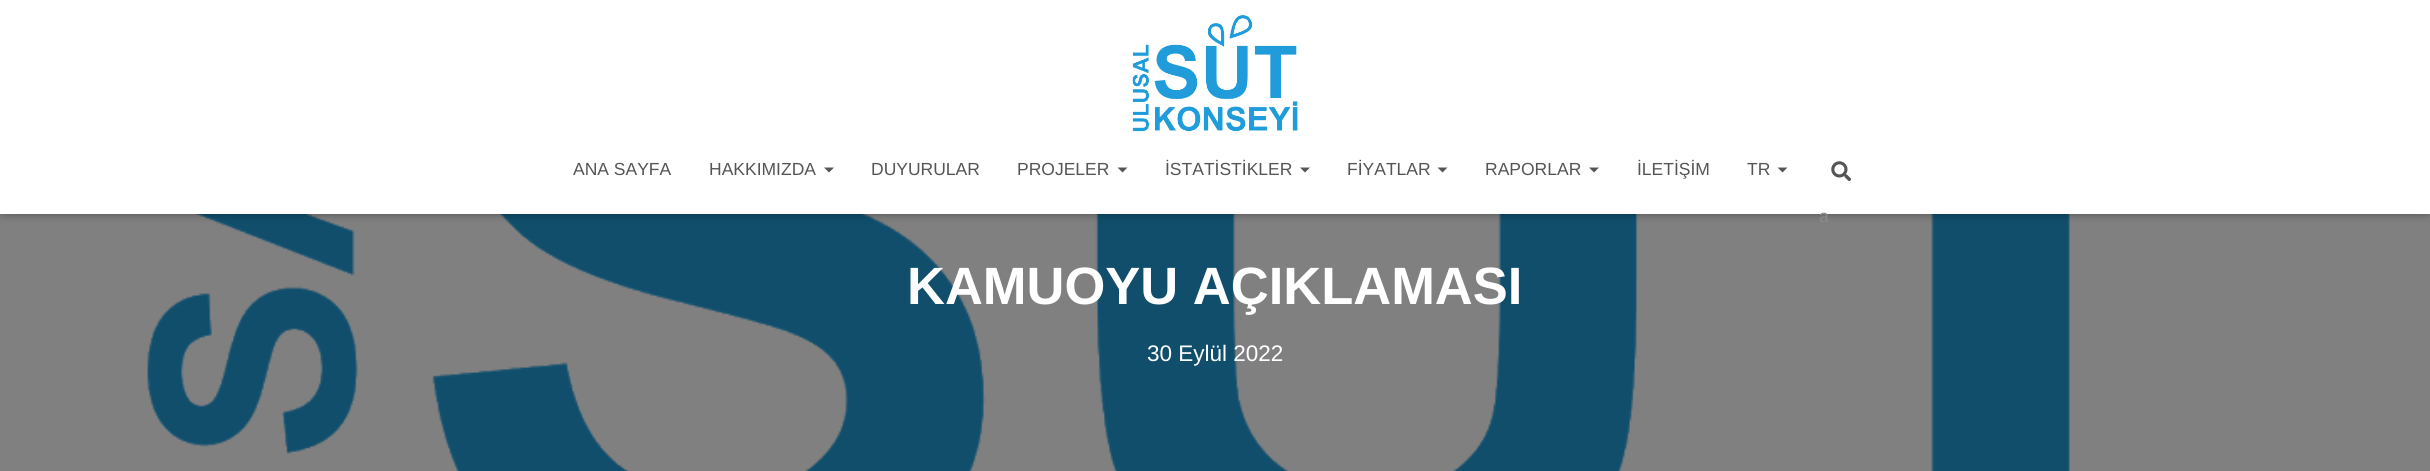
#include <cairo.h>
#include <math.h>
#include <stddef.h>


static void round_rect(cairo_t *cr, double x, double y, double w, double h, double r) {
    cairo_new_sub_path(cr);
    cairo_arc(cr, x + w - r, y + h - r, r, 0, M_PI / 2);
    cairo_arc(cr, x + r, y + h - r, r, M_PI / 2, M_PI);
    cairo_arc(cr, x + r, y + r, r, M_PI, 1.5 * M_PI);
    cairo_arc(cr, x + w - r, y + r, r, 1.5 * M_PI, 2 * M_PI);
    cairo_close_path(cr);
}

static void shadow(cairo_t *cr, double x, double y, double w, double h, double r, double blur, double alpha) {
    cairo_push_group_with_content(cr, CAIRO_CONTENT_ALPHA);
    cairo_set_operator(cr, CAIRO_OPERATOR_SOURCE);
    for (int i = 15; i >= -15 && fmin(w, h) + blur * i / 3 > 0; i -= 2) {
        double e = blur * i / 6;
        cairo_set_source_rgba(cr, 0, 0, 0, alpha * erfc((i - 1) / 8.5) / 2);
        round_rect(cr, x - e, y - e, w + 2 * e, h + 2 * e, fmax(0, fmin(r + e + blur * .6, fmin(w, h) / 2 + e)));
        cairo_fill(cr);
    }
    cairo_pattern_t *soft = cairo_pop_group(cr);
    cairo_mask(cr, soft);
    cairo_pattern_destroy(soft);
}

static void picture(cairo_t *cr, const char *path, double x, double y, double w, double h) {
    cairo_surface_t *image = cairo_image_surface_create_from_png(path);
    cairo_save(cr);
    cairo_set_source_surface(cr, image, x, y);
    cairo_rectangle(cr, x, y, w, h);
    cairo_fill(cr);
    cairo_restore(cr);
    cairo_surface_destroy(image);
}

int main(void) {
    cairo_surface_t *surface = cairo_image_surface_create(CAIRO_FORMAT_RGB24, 2430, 471);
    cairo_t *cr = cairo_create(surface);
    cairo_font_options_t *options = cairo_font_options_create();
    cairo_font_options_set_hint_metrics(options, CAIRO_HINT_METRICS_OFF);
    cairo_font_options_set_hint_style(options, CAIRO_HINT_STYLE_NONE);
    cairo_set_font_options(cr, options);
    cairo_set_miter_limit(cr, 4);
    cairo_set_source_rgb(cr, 0.502, 0.502, 0.502);
    cairo_paint(cr);
    picture(cr, "img3.png", 147, 214, 1923, 257);
    cairo_set_source_rgb(cr, 0, 0, 0);
    shadow(cr, 3, 8, 2425, 208, 0, 3, 0.1);
    shadow(cr, 0, 1, 2430, 214, 0, 6, 0.12);
    shadow(cr, 8, 9, 2415, 199, 0, 6, 0.42);
    cairo_set_source_rgb(cr, 1, 1, 1);
    cairo_rectangle(cr, 0, 0, 2430, 214);
    cairo_fill(cr);
    picture(cr, "img1.png", 1132, 15, 166, 117);
    cairo_select_font_face(cr, "Liberation Sans", CAIRO_FONT_SLANT_NORMAL, CAIRO_FONT_WEIGHT_NORMAL);
    cairo_set_font_size(cr, 17.5);
    cairo_set_source_rgb(cr, 0.333, 0.333, 0.333);
    cairo_move_to(cr, 573, 175);
    cairo_show_text(cr, "ANA SAYFA");
    cairo_move_to(cr, 709, 175);
    cairo_show_text(cr, "HAKKIMIZDA");
    cairo_new_path(cr);
    cairo_move_to(cr, 824, 167.5);
    cairo_line_to(cr, 834, 167.5);
    cairo_line_to(cr, 829, 172.5);
    cairo_close_path(cr);
    cairo_fill(cr);
    cairo_move_to(cr, 871, 175);
    cairo_show_text(cr, "DUYURULAR");
    cairo_move_to(cr, 1017, 175);
    cairo_show_text(cr, "PROJELER");
    cairo_new_path(cr);
    cairo_move_to(cr, 1117.5, 167.5);
    cairo_line_to(cr, 1127.5, 167.5);
    cairo_line_to(cr, 1122.5, 172.5);
    cairo_close_path(cr);
    cairo_fill(cr);
    cairo_move_to(cr, 1165, 175);
    cairo_show_text(cr, "İSTATİSTİKLER");
    cairo_new_path(cr);
    cairo_move_to(cr, 1300, 167.5);
    cairo_line_to(cr, 1310, 167.5);
    cairo_line_to(cr, 1305, 172.5);
    cairo_close_path(cr);
    cairo_fill(cr);
    cairo_move_to(cr, 1347, 175);
    cairo_show_text(cr, "FİYATLAR");
    cairo_new_path(cr);
    cairo_move_to(cr, 1437.5, 167.5);
    cairo_line_to(cr, 1447.5, 167.5);
    cairo_line_to(cr, 1442.5, 172.5);
    cairo_close_path(cr);
    cairo_fill(cr);
    cairo_move_to(cr, 1485, 175);
    cairo_show_text(cr, "RAPORLAR");
    cairo_new_path(cr);
    cairo_move_to(cr, 1589, 167.5);
    cairo_line_to(cr, 1599, 167.5);
    cairo_line_to(cr, 1594, 172.5);
    cairo_close_path(cr);
    cairo_fill(cr);
    cairo_move_to(cr, 1637, 175);
    cairo_show_text(cr, "İLETİŞİM");
    cairo_move_to(cr, 1747, 175);
    cairo_show_text(cr, "TR");
    cairo_new_path(cr);
    cairo_move_to(cr, 1777.5, 167.5);
    cairo_line_to(cr, 1787.5, 167.5);
    cairo_line_to(cr, 1782.5, 172.5);
    cairo_close_path(cr);
    cairo_fill(cr);
    picture(cr, "img2.png", 1831, 161, 20, 20);
    cairo_set_source_rgb(cr, 0.545, 0.545, 0.545);
    cairo_move_to(cr, 1819, 222);
    cairo_show_text(cr, "a");
    cairo_select_font_face(cr, "Liberation Sans", CAIRO_FONT_SLANT_NORMAL, CAIRO_FONT_WEIGHT_BOLD);
    cairo_set_font_size(cr, 52.5);
    cairo_set_source_rgb(cr, 1, 1, 1);
    cairo_move_to(cr, 907, 304);
    cairo_show_text(cr, "KAMUOYU AÇIKLAMASI");
    cairo_select_font_face(cr, "Liberation Sans", CAIRO_FONT_SLANT_NORMAL, CAIRO_FONT_WEIGHT_NORMAL);
    cairo_set_font_size(cr, 22.5);
    cairo_move_to(cr, 1147, 361);
    cairo_show_text(cr, "30 Eylül 2022");
    cairo_surface_write_to_png(surface, "page.png");
    cairo_font_options_destroy(options);
    cairo_destroy(cr);
    cairo_surface_destroy(surface);
    return 0;
}
